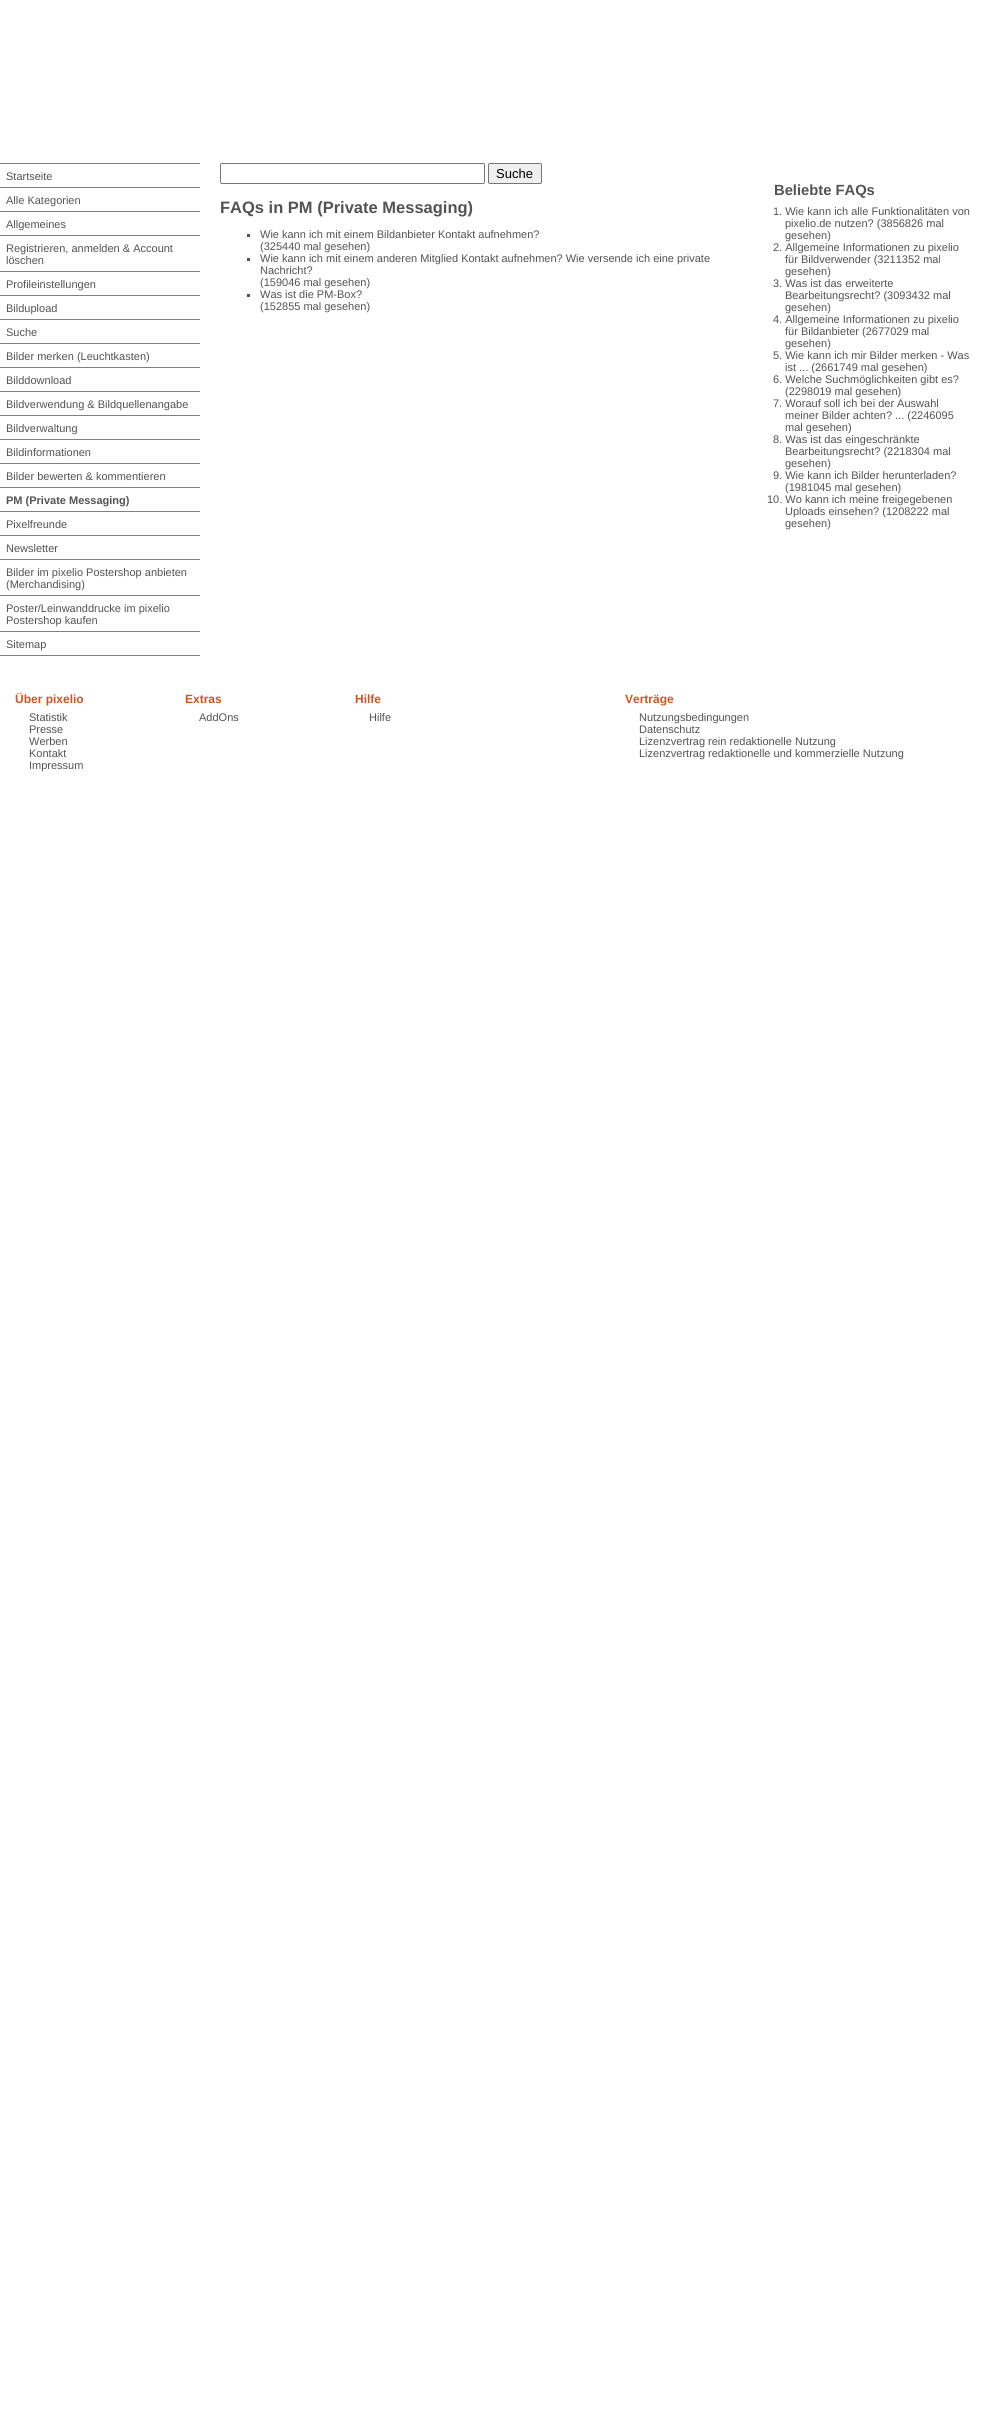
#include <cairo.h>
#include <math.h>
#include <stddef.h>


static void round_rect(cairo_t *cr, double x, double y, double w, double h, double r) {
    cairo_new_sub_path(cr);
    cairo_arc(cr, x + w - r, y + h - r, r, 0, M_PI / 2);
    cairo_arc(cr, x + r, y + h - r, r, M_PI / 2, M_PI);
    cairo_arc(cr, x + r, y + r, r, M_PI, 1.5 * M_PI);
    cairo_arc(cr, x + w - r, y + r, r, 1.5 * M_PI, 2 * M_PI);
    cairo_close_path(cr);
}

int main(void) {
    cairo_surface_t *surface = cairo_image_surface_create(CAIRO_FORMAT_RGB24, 999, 2425);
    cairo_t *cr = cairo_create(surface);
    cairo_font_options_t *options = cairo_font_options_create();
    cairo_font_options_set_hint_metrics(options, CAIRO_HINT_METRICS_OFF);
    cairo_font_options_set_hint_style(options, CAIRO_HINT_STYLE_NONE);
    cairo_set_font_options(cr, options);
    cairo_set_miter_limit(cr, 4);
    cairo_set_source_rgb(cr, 1, 1, 1);
    cairo_paint(cr);
    cairo_set_source_rgb(cr, 0.502, 0.502, 0.502);
    cairo_rectangle(cr, 0, 163, 200, 1);
    cairo_fill(cr);
    cairo_rectangle(cr, 0, 187, 200, 1);
    cairo_fill(cr);
    cairo_select_font_face(cr, "Liberation Sans", CAIRO_FONT_SLANT_NORMAL, CAIRO_FONT_WEIGHT_NORMAL);
    cairo_set_font_size(cr, 11);
    cairo_set_source_rgb(cr, 0.325, 0.325, 0.325);
    cairo_move_to(cr, 6, 180);
    cairo_show_text(cr, "Startseite");
    cairo_set_source_rgb(cr, 0.502, 0.502, 0.502);
    cairo_rectangle(cr, 0, 211, 200, 1);
    cairo_fill(cr);
    cairo_set_source_rgb(cr, 0.325, 0.325, 0.325);
    cairo_move_to(cr, 6, 204);
    cairo_show_text(cr, "Alle Kategorien");
    cairo_set_source_rgb(cr, 0.502, 0.502, 0.502);
    cairo_rectangle(cr, 0, 235, 200, 1);
    cairo_fill(cr);
    cairo_set_source_rgb(cr, 0.325, 0.325, 0.325);
    cairo_move_to(cr, 6, 228);
    cairo_show_text(cr, "Allgemeines");
    cairo_set_source_rgb(cr, 0.502, 0.502, 0.502);
    cairo_rectangle(cr, 0, 271, 200, 1);
    cairo_fill(cr);
    cairo_set_source_rgb(cr, 0.325, 0.325, 0.325);
    cairo_move_to(cr, 6, 252);
    cairo_show_text(cr, "Registrieren, anmelden & Account");
    cairo_move_to(cr, 6, 264);
    cairo_show_text(cr, "löschen");
    cairo_set_source_rgb(cr, 0.502, 0.502, 0.502);
    cairo_rectangle(cr, 0, 295, 200, 1);
    cairo_fill(cr);
    cairo_set_source_rgb(cr, 0.325, 0.325, 0.325);
    cairo_move_to(cr, 6, 288);
    cairo_show_text(cr, "Profileinstellungen");
    cairo_set_source_rgb(cr, 0.502, 0.502, 0.502);
    cairo_rectangle(cr, 0, 319, 200, 1);
    cairo_fill(cr);
    cairo_set_source_rgb(cr, 0.325, 0.325, 0.325);
    cairo_move_to(cr, 6, 312);
    cairo_show_text(cr, "Bildupload");
    cairo_set_source_rgb(cr, 0.502, 0.502, 0.502);
    cairo_rectangle(cr, 0, 343, 200, 1);
    cairo_fill(cr);
    cairo_set_source_rgb(cr, 0.325, 0.325, 0.325);
    cairo_move_to(cr, 6, 336);
    cairo_show_text(cr, "Suche");
    cairo_set_source_rgb(cr, 0.502, 0.502, 0.502);
    cairo_rectangle(cr, 0, 367, 200, 1);
    cairo_fill(cr);
    cairo_set_source_rgb(cr, 0.325, 0.325, 0.325);
    cairo_move_to(cr, 6, 360);
    cairo_show_text(cr, "Bilder merken (Leuchtkasten)");
    cairo_set_source_rgb(cr, 0.502, 0.502, 0.502);
    cairo_rectangle(cr, 0, 391, 200, 1);
    cairo_fill(cr);
    cairo_set_source_rgb(cr, 0.325, 0.325, 0.325);
    cairo_move_to(cr, 6, 384);
    cairo_show_text(cr, "Bilddownload");
    cairo_set_source_rgb(cr, 0.502, 0.502, 0.502);
    cairo_rectangle(cr, 0, 415, 200, 1);
    cairo_fill(cr);
    cairo_set_source_rgb(cr, 0.325, 0.325, 0.325);
    cairo_move_to(cr, 6, 408);
    cairo_show_text(cr, "Bildverwendung & Bildquellenangabe");
    cairo_set_source_rgb(cr, 0.502, 0.502, 0.502);
    cairo_rectangle(cr, 0, 439, 200, 1);
    cairo_fill(cr);
    cairo_set_source_rgb(cr, 0.325, 0.325, 0.325);
    cairo_move_to(cr, 6, 432);
    cairo_show_text(cr, "Bildverwaltung");
    cairo_set_source_rgb(cr, 0.502, 0.502, 0.502);
    cairo_rectangle(cr, 0, 463, 200, 1);
    cairo_fill(cr);
    cairo_set_source_rgb(cr, 0.325, 0.325, 0.325);
    cairo_move_to(cr, 6, 456);
    cairo_show_text(cr, "Bildinformationen");
    cairo_set_source_rgb(cr, 0.502, 0.502, 0.502);
    cairo_rectangle(cr, 0, 487, 200, 1);
    cairo_fill(cr);
    cairo_set_source_rgb(cr, 0.325, 0.325, 0.325);
    cairo_move_to(cr, 6, 480);
    cairo_show_text(cr, "Bilder bewerten & kommentieren");
    cairo_set_source_rgb(cr, 0.502, 0.502, 0.502);
    cairo_rectangle(cr, 0, 511, 200, 1);
    cairo_fill(cr);
    cairo_select_font_face(cr, "Liberation Sans", CAIRO_FONT_SLANT_NORMAL, CAIRO_FONT_WEIGHT_BOLD);
    cairo_set_source_rgb(cr, 0.325, 0.325, 0.325);
    cairo_move_to(cr, 6, 504);
    cairo_show_text(cr, "PM (Private Messaging)");
    cairo_set_source_rgb(cr, 0.502, 0.502, 0.502);
    cairo_rectangle(cr, 0, 535, 200, 1);
    cairo_fill(cr);
    cairo_select_font_face(cr, "Liberation Sans", CAIRO_FONT_SLANT_NORMAL, CAIRO_FONT_WEIGHT_NORMAL);
    cairo_set_source_rgb(cr, 0.325, 0.325, 0.325);
    cairo_move_to(cr, 6, 528);
    cairo_show_text(cr, "Pixelfreunde");
    cairo_set_source_rgb(cr, 0.502, 0.502, 0.502);
    cairo_rectangle(cr, 0, 559, 200, 1);
    cairo_fill(cr);
    cairo_set_source_rgb(cr, 0.325, 0.325, 0.325);
    cairo_move_to(cr, 6, 552);
    cairo_show_text(cr, "Newsletter");
    cairo_set_source_rgb(cr, 0.502, 0.502, 0.502);
    cairo_rectangle(cr, 0, 595, 200, 1);
    cairo_fill(cr);
    cairo_set_source_rgb(cr, 0.325, 0.325, 0.325);
    cairo_move_to(cr, 6, 576);
    cairo_show_text(cr, "Bilder im pixelio Postershop anbieten");
    cairo_move_to(cr, 6, 588);
    cairo_show_text(cr, "(Merchandising)");
    cairo_set_source_rgb(cr, 0.502, 0.502, 0.502);
    cairo_rectangle(cr, 0, 631, 200, 1);
    cairo_fill(cr);
    cairo_set_source_rgb(cr, 0.325, 0.325, 0.325);
    cairo_move_to(cr, 6, 612);
    cairo_show_text(cr, "Poster/Leinwanddrucke im pixelio");
    cairo_move_to(cr, 6, 624);
    cairo_show_text(cr, "Postershop kaufen");
    cairo_set_source_rgb(cr, 0.502, 0.502, 0.502);
    cairo_rectangle(cr, 0, 655, 200, 1);
    cairo_fill(cr);
    cairo_set_source_rgb(cr, 0.325, 0.325, 0.325);
    cairo_move_to(cr, 6, 648);
    cairo_show_text(cr, "Sitemap");
    round_rect(cr, 220.5, 163.5, 264, 20, 1.5);
    cairo_set_source_rgb(cr, 0.463, 0.463, 0.463);
    cairo_set_line_width(cr, 1);
    cairo_stroke(cr);
    cairo_set_source_rgb(cr, 0.937, 0.937, 0.937);
    round_rect(cr, 488.5, 163.5, 53, 20, 1.5);
    cairo_fill_preserve(cr);
    cairo_set_source_rgb(cr, 0.463, 0.463, 0.463);
    cairo_stroke(cr);
    cairo_set_font_size(cr, 13);
    cairo_set_source_rgb(cr, 0, 0, 0);
    cairo_move_to(cr, 496, 178);
    cairo_show_text(cr, "Suche");
    cairo_select_font_face(cr, "Liberation Sans", CAIRO_FONT_SLANT_NORMAL, CAIRO_FONT_WEIGHT_BOLD);
    cairo_set_font_size(cr, 16.5);
    cairo_set_source_rgb(cr, 0.325, 0.325, 0.325);
    cairo_move_to(cr, 220, 213);
    cairo_show_text(cr, "FAQs in PM (Private Messaging)");
    cairo_rectangle(cr, 247, 234, 3, 3);
    cairo_fill(cr);
    cairo_select_font_face(cr, "Liberation Sans", CAIRO_FONT_SLANT_NORMAL, CAIRO_FONT_WEIGHT_NORMAL);
    cairo_set_font_size(cr, 11);
    cairo_move_to(cr, 260, 238);
    cairo_show_text(cr, "Wie kann ich mit einem Bildanbieter Kontakt aufnehmen?");
    cairo_move_to(cr, 260, 250);
    cairo_show_text(cr, "(325440 mal gesehen)");
    cairo_rectangle(cr, 247, 258, 3, 3);
    cairo_fill(cr);
    cairo_move_to(cr, 260, 262);
    cairo_show_text(cr, "Wie kann ich mit einem anderen Mitglied Kontakt aufnehmen? Wie versende ich eine private");
    cairo_move_to(cr, 260, 274);
    cairo_show_text(cr, "Nachricht?");
    cairo_move_to(cr, 260, 286);
    cairo_show_text(cr, "(159046 mal gesehen)");
    cairo_rectangle(cr, 247, 294, 3, 3);
    cairo_fill(cr);
    cairo_move_to(cr, 260, 298);
    cairo_show_text(cr, "Was ist die PM-Box?");
    cairo_move_to(cr, 260, 310);
    cairo_show_text(cr, "(152855 mal gesehen)");
    cairo_select_font_face(cr, "Liberation Sans", CAIRO_FONT_SLANT_NORMAL, CAIRO_FONT_WEIGHT_BOLD);
    cairo_set_font_size(cr, 14.75);
    cairo_move_to(cr, 774, 195);
    cairo_show_text(cr, "Beliebte FAQs");
    cairo_select_font_face(cr, "Liberation Sans", CAIRO_FONT_SLANT_NORMAL, CAIRO_FONT_WEIGHT_NORMAL);
    cairo_set_font_size(cr, 11);
    cairo_move_to(cr, 773, 215);
    cairo_show_text(cr, "1. Wie kann ich alle Funktionalitäten von");
    cairo_move_to(cr, 785, 227);
    cairo_show_text(cr, "pixelio.de nutzen? (3856826 mal");
    cairo_move_to(cr, 785, 239);
    cairo_show_text(cr, "gesehen)");
    cairo_move_to(cr, 773, 251);
    cairo_show_text(cr, "2. Allgemeine Informationen zu pixelio");
    cairo_move_to(cr, 785, 263);
    cairo_show_text(cr, "für Bildverwender (3211352 mal");
    cairo_move_to(cr, 785, 275);
    cairo_show_text(cr, "gesehen)");
    cairo_move_to(cr, 773, 287);
    cairo_show_text(cr, "3. Was ist das erweiterte");
    cairo_move_to(cr, 785, 299);
    cairo_show_text(cr, "Bearbeitungsrecht? (3093432 mal");
    cairo_move_to(cr, 785, 311);
    cairo_show_text(cr, "gesehen)");
    cairo_move_to(cr, 773, 323);
    cairo_show_text(cr, "4. Allgemeine Informationen zu pixelio");
    cairo_move_to(cr, 785, 335);
    cairo_show_text(cr, "für Bildanbieter (2677029 mal");
    cairo_move_to(cr, 785, 347);
    cairo_show_text(cr, "gesehen)");
    cairo_move_to(cr, 773, 359);
    cairo_show_text(cr, "5. Wie kann ich mir Bilder merken - Was");
    cairo_move_to(cr, 785, 371);
    cairo_show_text(cr, "ist ... (2661749 mal gesehen)");
    cairo_move_to(cr, 773, 383);
    cairo_show_text(cr, "6. Welche Suchmöglichkeiten gibt es?");
    cairo_move_to(cr, 785, 395);
    cairo_show_text(cr, "(2298019 mal gesehen)");
    cairo_move_to(cr, 773, 407);
    cairo_show_text(cr, "7. Worauf soll ich bei der Auswahl");
    cairo_move_to(cr, 785, 419);
    cairo_show_text(cr, "meiner Bilder achten? ... (2246095");
    cairo_move_to(cr, 785, 431);
    cairo_show_text(cr, "mal gesehen)");
    cairo_move_to(cr, 773, 443);
    cairo_show_text(cr, "8. Was ist das eingeschränkte");
    cairo_move_to(cr, 785, 455);
    cairo_show_text(cr, "Bearbeitungsrecht? (2218304 mal");
    cairo_move_to(cr, 785, 467);
    cairo_show_text(cr, "gesehen)");
    cairo_move_to(cr, 773, 479);
    cairo_show_text(cr, "9. Wie kann ich Bilder herunterladen?");
    cairo_move_to(cr, 785, 491);
    cairo_show_text(cr, "(1981045 mal gesehen)");
    cairo_move_to(cr, 767, 503);
    cairo_show_text(cr, "10. Wo kann ich meine freigegebenen");
    cairo_move_to(cr, 785, 515);
    cairo_show_text(cr, "Uploads einsehen? (1208222 mal");
    cairo_move_to(cr, 785, 527);
    cairo_show_text(cr, "gesehen)");
    cairo_select_font_face(cr, "Liberation Sans", CAIRO_FONT_SLANT_NORMAL, CAIRO_FONT_WEIGHT_BOLD);
    cairo_set_font_size(cr, 12);
    cairo_set_source_rgb(cr, 0.816, 0.329, 0.137);
    cairo_move_to(cr, 15, 703);
    cairo_show_text(cr, "Über pixelio");
    cairo_select_font_face(cr, "Liberation Sans", CAIRO_FONT_SLANT_NORMAL, CAIRO_FONT_WEIGHT_NORMAL);
    cairo_set_font_size(cr, 11);
    cairo_set_source_rgb(cr, 0.325, 0.325, 0.325);
    cairo_move_to(cr, 29, 721);
    cairo_show_text(cr, "Statistik");
    cairo_move_to(cr, 29, 733);
    cairo_show_text(cr, "Presse");
    cairo_move_to(cr, 29, 745);
    cairo_show_text(cr, "Werben");
    cairo_move_to(cr, 29, 757);
    cairo_show_text(cr, "Kontakt");
    cairo_move_to(cr, 29, 769);
    cairo_show_text(cr, "Impressum");
    cairo_select_font_face(cr, "Liberation Sans", CAIRO_FONT_SLANT_NORMAL, CAIRO_FONT_WEIGHT_BOLD);
    cairo_set_font_size(cr, 12);
    cairo_set_source_rgb(cr, 0.816, 0.329, 0.137);
    cairo_move_to(cr, 185, 703);
    cairo_show_text(cr, "Extras");
    cairo_select_font_face(cr, "Liberation Sans", CAIRO_FONT_SLANT_NORMAL, CAIRO_FONT_WEIGHT_NORMAL);
    cairo_set_font_size(cr, 11);
    cairo_set_source_rgb(cr, 0.325, 0.325, 0.325);
    cairo_move_to(cr, 199, 721);
    cairo_show_text(cr, "AddOns");
    cairo_select_font_face(cr, "Liberation Sans", CAIRO_FONT_SLANT_NORMAL, CAIRO_FONT_WEIGHT_BOLD);
    cairo_set_font_size(cr, 12);
    cairo_set_source_rgb(cr, 0.816, 0.329, 0.137);
    cairo_move_to(cr, 355, 703);
    cairo_show_text(cr, "Hilfe");
    cairo_select_font_face(cr, "Liberation Sans", CAIRO_FONT_SLANT_NORMAL, CAIRO_FONT_WEIGHT_NORMAL);
    cairo_set_font_size(cr, 11);
    cairo_set_source_rgb(cr, 0.325, 0.325, 0.325);
    cairo_move_to(cr, 369, 721);
    cairo_show_text(cr, "Hilfe");
    cairo_select_font_face(cr, "Liberation Sans", CAIRO_FONT_SLANT_NORMAL, CAIRO_FONT_WEIGHT_BOLD);
    cairo_set_font_size(cr, 12);
    cairo_set_source_rgb(cr, 0.816, 0.329, 0.137);
    cairo_move_to(cr, 625, 703);
    cairo_show_text(cr, "Verträge");
    cairo_select_font_face(cr, "Liberation Sans", CAIRO_FONT_SLANT_NORMAL, CAIRO_FONT_WEIGHT_NORMAL);
    cairo_set_font_size(cr, 11);
    cairo_set_source_rgb(cr, 0.325, 0.325, 0.325);
    cairo_move_to(cr, 639, 721);
    cairo_show_text(cr, "Nutzungsbedingungen");
    cairo_move_to(cr, 639, 733);
    cairo_show_text(cr, "Datenschutz");
    cairo_move_to(cr, 639, 745);
    cairo_show_text(cr, "Lizenzvertrag rein redaktionelle Nutzung");
    cairo_move_to(cr, 639, 757);
    cairo_show_text(cr, "Lizenzvertrag redaktionelle und kommerzielle Nutzung");
    cairo_surface_write_to_png(surface, "page.png");
    cairo_font_options_destroy(options);
    cairo_destroy(cr);
    cairo_surface_destroy(surface);
    return 0;
}
